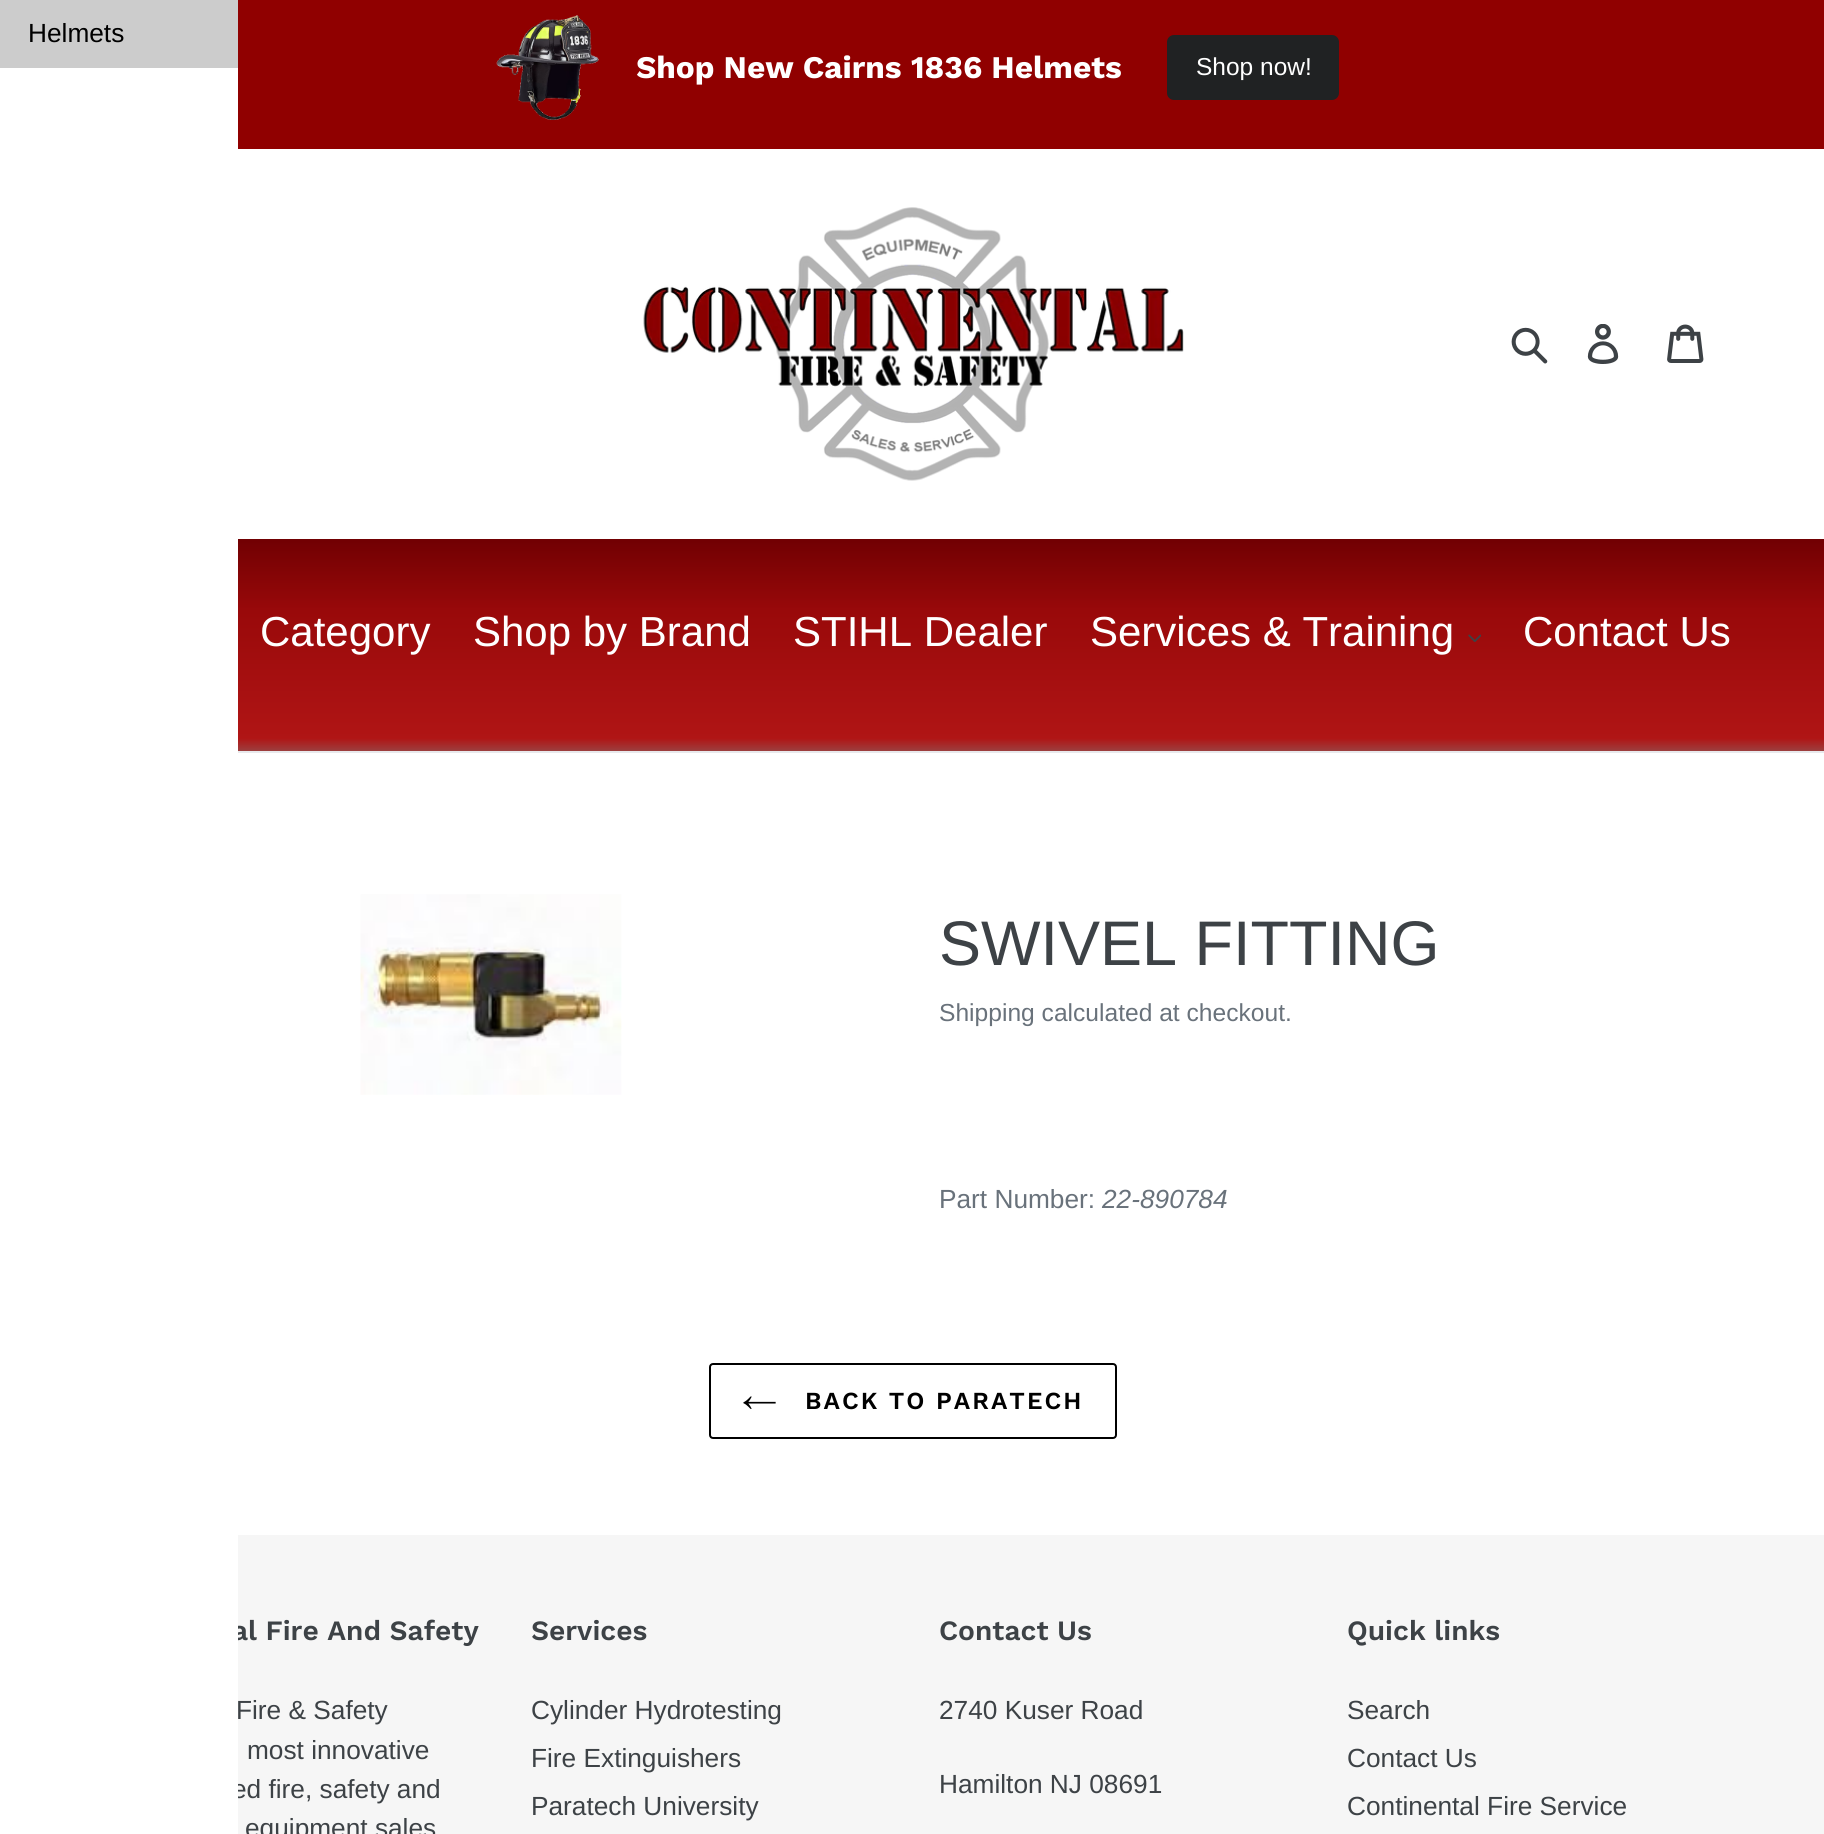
#include <cairo.h>
#include <math.h>
#include <stddef.h>


static void spaced_text(cairo_t *cr, double x, double y, const char *s, double letter, double word) {
    cairo_move_to(cr, x, y);
    while (*s) {
        char ch[5] = {0};
        int n = 0;
        do ch[n++] = *s++; while ((*s & 0xC0) == 0x80);
        cairo_show_text(cr, ch);
        cairo_rel_move_to(cr, letter + word * (*ch == ' '), 0);
    }
}

static void round_rect(cairo_t *cr, double x, double y, double w, double h, double r) {
    cairo_new_sub_path(cr);
    cairo_arc(cr, x + w - r, y + h - r, r, 0, M_PI / 2);
    cairo_arc(cr, x + r, y + h - r, r, M_PI / 2, M_PI);
    cairo_arc(cr, x + r, y + r, r, M_PI, 1.5 * M_PI);
    cairo_arc(cr, x + w - r, y + r, r, 1.5 * M_PI, 2 * M_PI);
    cairo_close_path(cr);
}

static void picture(cairo_t *cr, const char *path, double x, double y, double w, double h) {
    cairo_surface_t *image = cairo_image_surface_create_from_png(path);
    cairo_save(cr);
    cairo_set_source_surface(cr, image, x, y);
    cairo_rectangle(cr, x, y, w, h);
    cairo_fill(cr);
    cairo_restore(cr);
    cairo_surface_destroy(image);
}

int main(void) {
    cairo_surface_t *surface = cairo_image_surface_create(CAIRO_FORMAT_RGB24, 1824, 1834);
    cairo_t *cr = cairo_create(surface);
    cairo_font_options_t *options = cairo_font_options_create();
    cairo_font_options_set_hint_metrics(options, CAIRO_HINT_METRICS_OFF);
    cairo_font_options_set_hint_style(options, CAIRO_HINT_STYLE_NONE);
    cairo_set_font_options(cr, options);
    cairo_set_miter_limit(cr, 4);
    cairo_pattern_t *gradient;
    cairo_set_source_rgb(cr, 1, 1, 1);
    cairo_paint(cr);
    cairo_set_source_rgb(cr, 0.8, 0.8, 0.8);
    cairo_rectangle(cr, 0, 0, 238, 68);
    cairo_fill(cr);
    cairo_select_font_face(cr, "Liberation Sans", CAIRO_FONT_SLANT_NORMAL, CAIRO_FONT_WEIGHT_NORMAL);
    cairo_set_font_size(cr, 26.25);
    cairo_set_source_rgb(cr, 0, 0, 0);
    cairo_move_to(cr, 28, 42);
    cairo_show_text(cr, "Helmets");
    cairo_set_source_rgb(cr, 0.961, 0.961, 0.961);
    cairo_rectangle(cr, 238, 1535, 1586, 299);
    cairo_fill(cr);
    cairo_select_font_face(cr, "Work Sans SemiBold", CAIRO_FONT_SLANT_NORMAL, CAIRO_FONT_WEIGHT_NORMAL);
    cairo_set_font_size(cr, 28);
    cairo_set_source_rgb(cr, 0.239, 0.259, 0.275);
    cairo_move_to(cr, 232, 1640);
    cairo_show_text(cr, "al Fire And Safety");
    cairo_select_font_face(cr, "Liberation Sans", CAIRO_FONT_SLANT_NORMAL, CAIRO_FONT_WEIGHT_NORMAL);
    cairo_set_font_size(cr, 26.25);
    cairo_move_to(cr, 232, 1798);
    cairo_show_text(cr, "ed fire, safety and");
    cairo_set_source_rgb(cr, 1, 1, 1);
    cairo_rectangle(cr, 233, 1625, 5, 174);
    cairo_fill(cr);
    cairo_set_source_rgb(cr, 0.565, 0, 0);
    cairo_rectangle(cr, 238, 0, 1586, 149);
    cairo_fill(cr);
    picture(cr, "img1.png", 496, 15, 103, 105);
    cairo_select_font_face(cr, "Work Sans", CAIRO_FONT_SLANT_NORMAL, CAIRO_FONT_WEIGHT_BOLD);
    cairo_set_font_size(cr, 31.5);
    cairo_set_source_rgb(cr, 1, 1, 1);
    cairo_move_to(cr, 636, 78);
    cairo_show_text(cr, "Shop New Cairns 1836 Helmets");
    cairo_set_source_rgb(cr, 0.125, 0.133, 0.137);
    round_rect(cr, 1167, 35, 172, 65, 7);
    cairo_fill(cr);
    cairo_select_font_face(cr, "Liberation Sans", CAIRO_FONT_SLANT_NORMAL, CAIRO_FONT_WEIGHT_NORMAL);
    cairo_set_font_size(cr, 24.5);
    cairo_set_source_rgb(cr, 1, 1, 1);
    cairo_move_to(cr, 1196, 75);
    cairo_show_text(cr, "Shop now!");
    picture(cr, "img2.png", 643, 207, 541, 274);
    picture(cr, "img3.png", 1511, 327, 37, 37);
    picture(cr, "img4.png", 1587, 324, 32, 40);
    picture(cr, "img5.png", 1667, 324, 37, 39);
    gradient = cairo_pattern_create_linear(913, 539, 913, 751);
    cairo_pattern_add_color_stop_rgba(gradient, 0, 0.443, 0, 0.008, 1);
    cairo_pattern_add_color_stop_rgba(gradient, 0.34, 0.6, 0.035, 0.039, 1);
    cairo_pattern_add_color_stop_rgba(gradient, 0.94, 0.69, 0.082, 0.082, 1);
    cairo_pattern_add_color_stop_rgba(gradient, 1, 0.612, 0.247, 0.247, 1);
    cairo_set_source(cr, gradient);
    cairo_pattern_destroy(gradient);
    cairo_rectangle(cr, 238, 539, 1586, 212);
    cairo_fill(cr);
    cairo_set_source_rgb(cr, 0.91, 0.914, 0.922);
    cairo_rectangle(cr, 238, 751, 1586, 2);
    cairo_fill(cr);
    cairo_set_font_size(cr, 42);
    cairo_set_source_rgb(cr, 1, 1, 1);
    cairo_move_to(cr, 260, 646);
    cairo_show_text(cr, "Category");
    cairo_move_to(cr, 473, 646);
    cairo_show_text(cr, "Shop by Brand");
    cairo_move_to(cr, 793, 646);
    cairo_show_text(cr, "STIHL Dealer");
    cairo_move_to(cr, 1090, 646);
    cairo_show_text(cr, "Services & Training");
    picture(cr, "img6.png", 1468, 634, 13, 8);
    cairo_move_to(cr, 1523, 646);
    cairo_show_text(cr, "Contact Us");
    picture(cr, "img7.png", 360, 894, 262, 201);
    cairo_set_font_size(cr, 63);
    cairo_set_source_rgb(cr, 0.239, 0.259, 0.275);
    cairo_move_to(cr, 939, 965);
    cairo_show_text(cr, "SWIVEL FITTING");
    cairo_set_font_size(cr, 24.6);
    cairo_set_source_rgb(cr, 0.412, 0.447, 0.482);
    cairo_move_to(cr, 939, 1021);
    cairo_show_text(cr, "Shipping calculated at checkout.");
    cairo_set_font_size(cr, 26.25);
    cairo_move_to(cr, 939, 1208);
    cairo_show_text(cr, "Part Number:");
    cairo_select_font_face(cr, "Liberation Sans", CAIRO_FONT_SLANT_ITALIC, CAIRO_FONT_WEIGHT_NORMAL);
    cairo_move_to(cr, 1102, 1208);
    cairo_show_text(cr, "22-890784");
    round_rect(cr, 710, 1364, 406, 74, 3);
    cairo_set_source_rgb(cr, 0, 0, 0);
    cairo_stroke(cr);
    picture(cr, "img8.png", 743, 1396, 33, 13);
    cairo_select_font_face(cr, "Work Sans SemiBold", CAIRO_FONT_SLANT_NORMAL, CAIRO_FONT_WEIGHT_NORMAL);
    cairo_set_font_size(cr, 24.5);
    spaced_text(cr, 805, 1409, "BACK TO PARATECH", 2, 0);
    cairo_select_font_face(cr, "Liberation Sans", CAIRO_FONT_SLANT_NORMAL, CAIRO_FONT_WEIGHT_NORMAL);
    cairo_set_font_size(cr, 26.25);
    cairo_set_source_rgb(cr, 0.239, 0.259, 0.275);
    cairo_move_to(cr, 236, 1719);
    cairo_show_text(cr, "Fire & Safety");
    cairo_move_to(cr, 247, 1759);
    cairo_show_text(cr, "most innovative");
    cairo_move_to(cr, 245, 1837);
    cairo_show_text(cr, "equipment sales");
    cairo_select_font_face(cr, "Work Sans SemiBold", CAIRO_FONT_SLANT_NORMAL, CAIRO_FONT_WEIGHT_NORMAL);
    cairo_set_font_size(cr, 28);
    cairo_move_to(cr, 531, 1640);
    cairo_show_text(cr, "Services");
    cairo_select_font_face(cr, "Liberation Sans", CAIRO_FONT_SLANT_NORMAL, CAIRO_FONT_WEIGHT_NORMAL);
    cairo_set_font_size(cr, 26.25);
    cairo_move_to(cr, 531, 1719);
    cairo_show_text(cr, "Cylinder Hydrotesting");
    cairo_move_to(cr, 531, 1767);
    cairo_show_text(cr, "Fire Extinguishers");
    cairo_move_to(cr, 531, 1815);
    cairo_show_text(cr, "Paratech University");
    cairo_select_font_face(cr, "Work Sans SemiBold", CAIRO_FONT_SLANT_NORMAL, CAIRO_FONT_WEIGHT_NORMAL);
    cairo_set_font_size(cr, 28);
    cairo_move_to(cr, 939, 1640);
    cairo_show_text(cr, "Contact Us");
    cairo_select_font_face(cr, "Liberation Sans", CAIRO_FONT_SLANT_NORMAL, CAIRO_FONT_WEIGHT_NORMAL);
    cairo_set_font_size(cr, 26.25);
    cairo_move_to(cr, 939, 1719);
    cairo_show_text(cr, "2740 Kuser Road");
    cairo_move_to(cr, 939, 1793);
    cairo_show_text(cr, "Hamilton NJ 08691");
    cairo_select_font_face(cr, "Work Sans SemiBold", CAIRO_FONT_SLANT_NORMAL, CAIRO_FONT_WEIGHT_NORMAL);
    cairo_set_font_size(cr, 28);
    cairo_move_to(cr, 1347, 1640);
    cairo_show_text(cr, "Quick links");
    cairo_select_font_face(cr, "Liberation Sans", CAIRO_FONT_SLANT_NORMAL, CAIRO_FONT_WEIGHT_NORMAL);
    cairo_set_font_size(cr, 26.25);
    cairo_move_to(cr, 1347, 1719);
    cairo_show_text(cr, "Search");
    cairo_move_to(cr, 1347, 1767);
    cairo_show_text(cr, "Contact Us");
    cairo_move_to(cr, 1347, 1815);
    cairo_show_text(cr, "Continental Fire Service");
    cairo_surface_write_to_png(surface, "page.png");
    cairo_font_options_destroy(options);
    cairo_destroy(cr);
    cairo_surface_destroy(surface);
    return 0;
}
